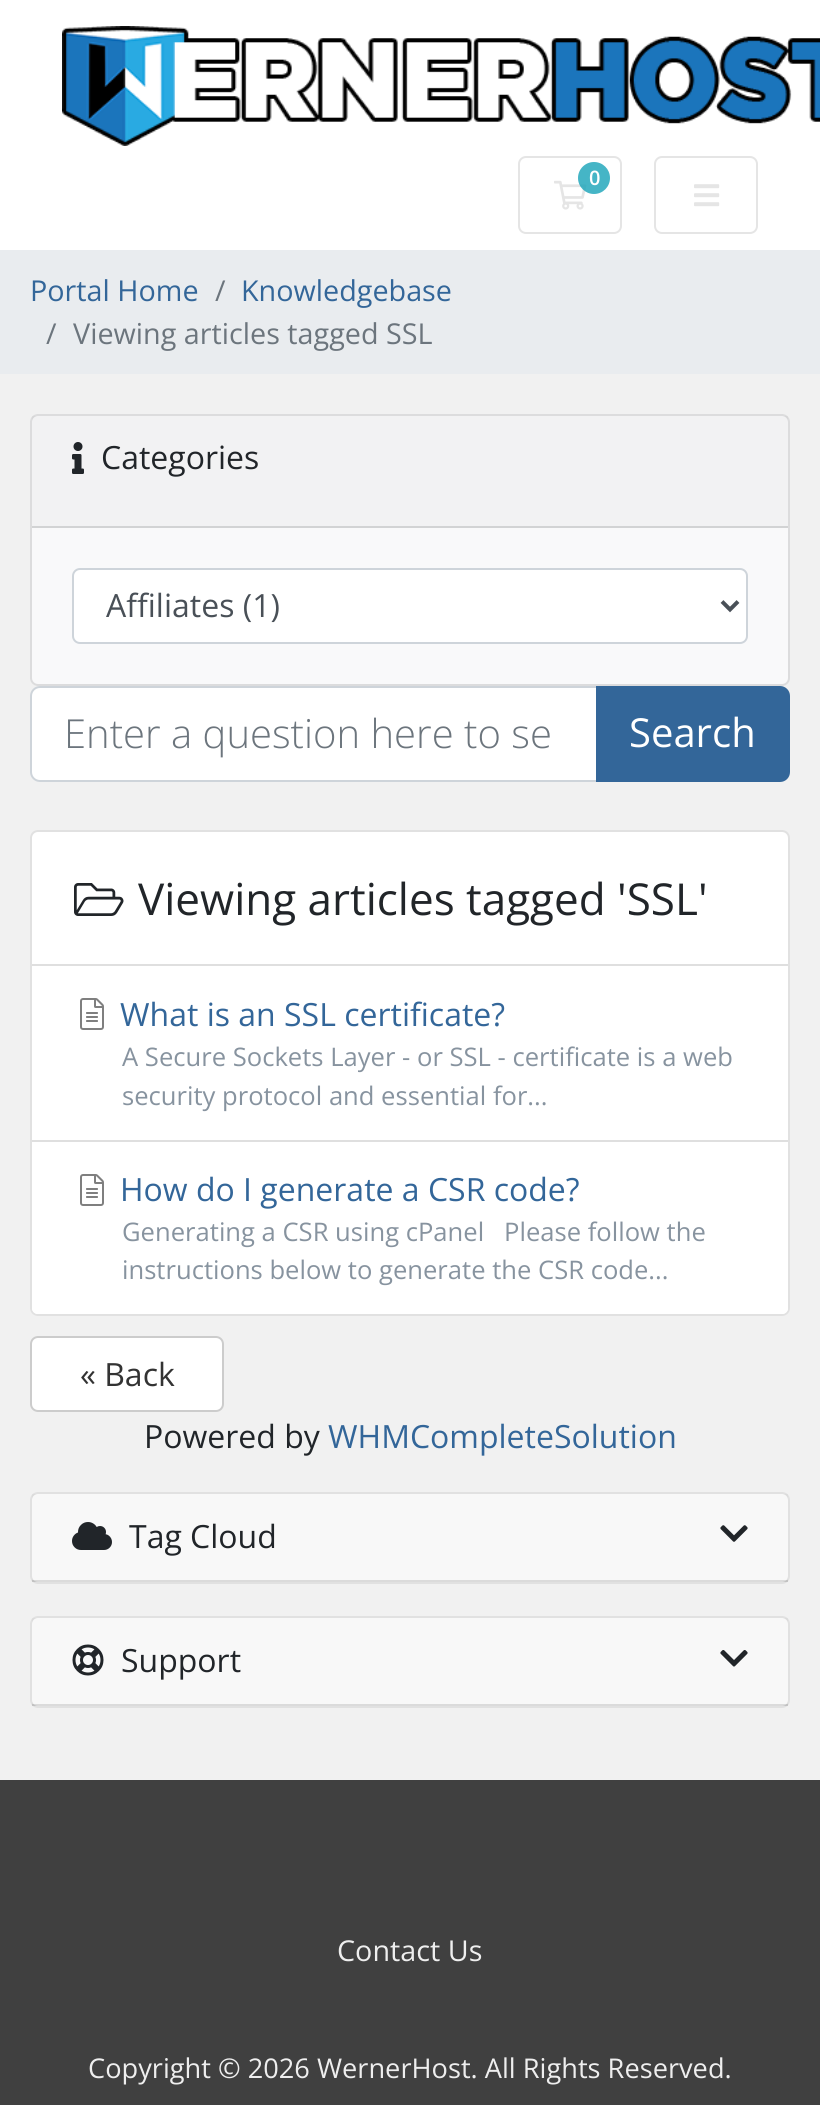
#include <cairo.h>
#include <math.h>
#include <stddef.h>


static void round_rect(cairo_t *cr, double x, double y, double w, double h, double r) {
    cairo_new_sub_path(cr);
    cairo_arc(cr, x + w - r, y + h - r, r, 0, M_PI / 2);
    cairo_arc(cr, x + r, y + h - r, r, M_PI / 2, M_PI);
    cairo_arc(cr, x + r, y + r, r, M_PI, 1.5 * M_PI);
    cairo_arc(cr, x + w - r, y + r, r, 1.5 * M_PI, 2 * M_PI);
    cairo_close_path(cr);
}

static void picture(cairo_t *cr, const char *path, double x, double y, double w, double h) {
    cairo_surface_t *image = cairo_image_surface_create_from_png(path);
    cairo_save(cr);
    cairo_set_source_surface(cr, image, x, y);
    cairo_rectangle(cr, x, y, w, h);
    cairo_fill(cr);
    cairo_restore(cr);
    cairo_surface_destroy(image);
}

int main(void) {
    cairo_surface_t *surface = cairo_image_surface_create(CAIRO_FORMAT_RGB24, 820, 2105);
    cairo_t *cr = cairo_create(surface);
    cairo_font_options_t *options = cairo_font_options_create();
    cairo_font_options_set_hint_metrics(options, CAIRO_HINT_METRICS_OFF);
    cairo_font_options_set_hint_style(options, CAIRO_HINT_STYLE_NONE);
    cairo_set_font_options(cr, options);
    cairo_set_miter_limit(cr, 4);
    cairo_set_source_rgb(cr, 0.945, 0.945, 0.945);
    cairo_paint(cr);
    cairo_set_source_rgb(cr, 1, 1, 1);
    cairo_rectangle(cr, 0, 0, 820, 250);
    cairo_fill(cr);
    picture(cr, "img1.png", 62, 26, 758, 120);
    round_rect(cr, 519, 157, 102, 76, 7);
    cairo_set_source_rgb(cr, 0.898, 0.898, 0.898);
    cairo_stroke(cr);
    picture(cr, "img2.png", 554, 180, 33, 30);
    cairo_set_source_rgba(cr, 0.09, 0.635, 0.722, 0.8);
    cairo_arc(cr, 594, 178, 16, 0, 2 * M_PI);
    cairo_fill(cr);
    cairo_select_font_face(cr, "Open Sans SemiBold", CAIRO_FONT_SLANT_NORMAL, CAIRO_FONT_WEIGHT_NORMAL);
    cairo_set_font_size(cr, 20);
    cairo_set_source_rgb(cr, 1, 1, 1);
    cairo_move_to(cr, 589, 185);
    cairo_show_text(cr, "0");
    round_rect(cr, 655, 157, 102, 76, 7);
    cairo_set_source_rgb(cr, 0.898, 0.898, 0.898);
    cairo_stroke(cr);
    picture(cr, "img3.png", 694, 184, 26, 23);
    cairo_set_source_rgb(cr, 0.914, 0.925, 0.937);
    cairo_rectangle(cr, 0, 250, 820, 124);
    cairo_fill(cr);
    cairo_select_font_face(cr, "Open Sans", CAIRO_FONT_SLANT_NORMAL, CAIRO_FONT_WEIGHT_NORMAL);
    cairo_set_font_size(cr, 28.75);
    cairo_set_source_rgb(cr, 0.2, 0.4, 0.6);
    cairo_move_to(cr, 30, 301);
    cairo_show_text(cr, "Portal Home");
    cairo_set_source_rgb(cr, 0.424, 0.459, 0.49);
    cairo_move_to(cr, 215, 301);
    cairo_show_text(cr, "/");
    cairo_set_source_rgb(cr, 0.2, 0.4, 0.6);
    cairo_move_to(cr, 241, 301);
    cairo_show_text(cr, "Knowledgebase");
    cairo_set_source_rgb(cr, 0.424, 0.459, 0.49);
    cairo_move_to(cr, 46, 344);
    cairo_show_text(cr, "/");
    cairo_move_to(cr, 73, 344);
    cairo_show_text(cr, "Viewing articles tagged SSL");
    cairo_set_source_rgb(cr, 0.973, 0.976, 0.98);
    round_rect(cr, 30, 414, 760, 272, 8);
    cairo_fill(cr);
    round_rect(cr, 31, 415, 758, 270, 7);
    cairo_set_source_rgba(cr, 0, 0, 0, 0.12);
    cairo_stroke(cr);
    cairo_set_source_rgba(cr, 0, 0, 0, 0.03);
    cairo_rectangle(cr, 32, 416, 756, 110);
    cairo_fill(cr);
    cairo_set_source_rgb(cr, 0.824, 0.827, 0.831);
    cairo_rectangle(cr, 32, 526, 756, 2);
    cairo_fill(cr);
    picture(cr, "img4.png", 72, 442, 12, 32);
    cairo_set_font_size(cr, 32);
    cairo_set_source_rgb(cr, 0.129, 0.145, 0.161);
    cairo_move_to(cr, 101, 469);
    cairo_show_text(cr, "Categories");
    cairo_set_source_rgb(cr, 1, 1, 1);
    round_rect(cr, 73, 569, 674, 74, 7);
    cairo_fill_preserve(cr);
    cairo_set_source_rgb(cr, 0.808, 0.831, 0.855);
    cairo_stroke(cr);
    cairo_new_path(cr);
    cairo_move_to(cr, 722, 601.5);
    cairo_line_to(cr, 730, 609.5);
    cairo_line_to(cr, 738, 601.5);
    cairo_set_source_rgb(cr, 0.286, 0.314, 0.341);
    cairo_set_line_width(cr, 4);
    cairo_stroke(cr);
    cairo_move_to(cr, 106, 617);
    cairo_show_text(cr, "Affiliates (1)");
    cairo_set_source_rgb(cr, 1, 1, 1);
    cairo_new_path(cr);
    cairo_move_to(cr, 40, 687);
    cairo_line_to(cr, 597, 687);
    cairo_line_to(cr, 597, 781);
    cairo_line_to(cr, 40, 781);
    cairo_curve_to(cr, 35, 781, 31, 777, 31, 772);
    cairo_line_to(cr, 31, 696);
    cairo_curve_to(cr, 31, 691, 35, 687, 40, 687);
    cairo_close_path(cr);
    cairo_fill_preserve(cr);
    cairo_set_source_rgb(cr, 0.808, 0.831, 0.855);
    cairo_set_line_width(cr, 2);
    cairo_stroke(cr);
    cairo_select_font_face(cr, "Open Sans Light", CAIRO_FONT_SLANT_NORMAL, CAIRO_FONT_WEIGHT_NORMAL);
    cairo_set_font_size(cr, 40);
    cairo_set_source_rgb(cr, 0.424, 0.459, 0.49);
    cairo_move_to(cr, 64, 748);
    cairo_show_text(cr, "Enter a question here to se");
    cairo_set_source_rgb(cr, 0.2, 0.4, 0.6);
    cairo_new_path(cr);
    cairo_move_to(cr, 597, 687);
    cairo_line_to(cr, 780, 687);
    cairo_curve_to(cr, 785, 687, 789, 691, 789, 696);
    cairo_line_to(cr, 789, 772);
    cairo_curve_to(cr, 789, 777, 785, 781, 780, 781);
    cairo_line_to(cr, 597, 781);
    cairo_close_path(cr);
    cairo_fill_preserve(cr);
    cairo_stroke(cr);
    cairo_select_font_face(cr, "Open Sans", CAIRO_FONT_SLANT_NORMAL, CAIRO_FONT_WEIGHT_NORMAL);
    cairo_set_source_rgb(cr, 1, 1, 1);
    cairo_move_to(cr, 629, 747);
    cairo_show_text(cr, "Search");
    round_rect(cr, 30, 830, 760, 486, 8);
    cairo_fill(cr);
    round_rect(cr, 31, 831, 758, 484, 7);
    cairo_set_source_rgba(cr, 0, 0, 0, 0.12);
    cairo_stroke(cr);
    picture(cr, "img5.png", 74, 883, 50, 33);
    cairo_set_font_size(cr, 44);
    cairo_set_source_rgb(cr, 0.129, 0.145, 0.161);
    cairo_move_to(cr, 138, 915);
    cairo_show_text(cr, "Viewing articles tagged 'SSL'");
    cairo_set_source_rgb(cr, 0.875, 0.875, 0.875);
    cairo_rectangle(cr, 32, 964, 756, 2);
    cairo_fill(cr);
    cairo_rectangle(cr, 32, 1140, 756, 2);
    cairo_fill(cr);
    picture(cr, "img6.png", 80, 998, 24, 32);
    cairo_set_font_size(cr, 32);
    cairo_set_source_rgb(cr, 0.2, 0.4, 0.6);
    cairo_move_to(cr, 120, 1026);
    cairo_show_text(cr, "What is an SSL certificate?");
    cairo_set_font_size(cr, 25.6);
    cairo_set_source_rgb(cr, 0.529, 0.576, 0.624);
    cairo_move_to(cr, 122, 1066);
    cairo_show_text(cr, "A Secure Sockets Layer - or SSL - certificate is a web");
    cairo_move_to(cr, 122, 1105);
    cairo_show_text(cr, "security protocol and essential for...");
    cairo_set_source_rgb(cr, 1, 1, 1);
    cairo_new_path(cr);
    cairo_move_to(cr, 32, 1142);
    cairo_line_to(cr, 788, 1142);
    cairo_line_to(cr, 788, 1308);
    cairo_curve_to(cr, 788, 1311.5, 785.5, 1314, 782, 1314);
    cairo_line_to(cr, 38, 1314);
    cairo_curve_to(cr, 34.5, 1314, 32, 1311.5, 32, 1308);
    cairo_close_path(cr);
    cairo_fill(cr);
    picture(cr, "img6.png", 80, 1174, 24, 32);
    cairo_set_font_size(cr, 32);
    cairo_set_source_rgb(cr, 0.2, 0.4, 0.6);
    cairo_move_to(cr, 120, 1201);
    cairo_show_text(cr, "How do I generate a CSR code?");
    cairo_set_font_size(cr, 25.6);
    cairo_set_source_rgb(cr, 0.529, 0.576, 0.624);
    cairo_move_to(cr, 122, 1241);
    cairo_show_text(cr, "Generating a CSR using cPanel   Please follow the");
    cairo_move_to(cr, 122, 1279);
    cairo_show_text(cr, "instructions below to generate the CSR code...");
    cairo_set_source_rgb(cr, 1, 1, 1);
    round_rect(cr, 31, 1337, 192, 74, 7);
    cairo_fill_preserve(cr);
    cairo_set_source_rgb(cr, 0.8, 0.8, 0.8);
    cairo_stroke(cr);
    cairo_set_font_size(cr, 32);
    cairo_set_source_rgb(cr, 0.2, 0.2, 0.2);
    cairo_move_to(cr, 80, 1386);
    cairo_show_text(cr, "« Back");
    cairo_set_source_rgb(cr, 0.129, 0.145, 0.161);
    cairo_move_to(cr, 144, 1448);
    cairo_show_text(cr, "Powered by");
    cairo_set_source_rgb(cr, 0.2, 0.4, 0.6);
    cairo_move_to(cr, 328, 1448);
    cairo_show_text(cr, "WHMCompleteSolution");
    cairo_set_source_rgb(cr, 1, 1, 1);
    round_rect(cr, 30, 1492, 760, 92, 8);
    cairo_fill(cr);
    round_rect(cr, 31, 1493, 758, 90, 7);
    cairo_set_source_rgba(cr, 0, 0, 0, 0.12);
    cairo_stroke(cr);
    cairo_set_source_rgba(cr, 0, 0, 0, 0.03);
    cairo_rectangle(cr, 32, 1494, 756, 88);
    cairo_fill(cr);
    cairo_set_source_rgba(cr, 0, 0, 0, 0.12);
    cairo_rectangle(cr, 32, 1580, 756, 2);
    cairo_fill(cr);
    picture(cr, "img7.png", 72, 1522, 40, 28);
    cairo_set_source_rgb(cr, 0.129, 0.145, 0.161);
    cairo_move_to(cr, 129, 1548);
    cairo_show_text(cr, "Tag Cloud");
    picture(cr, "img8.png", 720, 1525, 28, 17);
    cairo_set_source_rgb(cr, 1, 1, 1);
    round_rect(cr, 30, 1616, 760, 92, 8);
    cairo_fill(cr);
    round_rect(cr, 31, 1617, 758, 90, 7);
    cairo_set_source_rgba(cr, 0, 0, 0, 0.12);
    cairo_stroke(cr);
    cairo_set_source_rgba(cr, 0, 0, 0, 0.03);
    cairo_rectangle(cr, 32, 1618, 756, 88);
    cairo_fill(cr);
    cairo_set_source_rgba(cr, 0, 0, 0, 0.12);
    cairo_rectangle(cr, 32, 1704, 756, 2);
    cairo_fill(cr);
    picture(cr, "img9.png", 72, 1644, 32, 32);
    cairo_set_source_rgb(cr, 0.129, 0.145, 0.161);
    cairo_move_to(cr, 121, 1672);
    cairo_show_text(cr, "Support");
    picture(cr, "img10.png", 720, 1650, 28, 17);
    cairo_set_source_rgb(cr, 0.251, 0.251, 0.251);
    cairo_rectangle(cr, 0, 1780, 820, 325);
    cairo_fill(cr);
    cairo_set_font_size(cr, 28.75);
    cairo_set_source_rgb(cr, 0.933, 0.933, 0.933);
    cairo_move_to(cr, 337, 1961);
    cairo_show_text(cr, "Contact Us");
    cairo_set_font_size(cr, 27.2);
    cairo_move_to(cr, 88, 2078);
    cairo_show_text(cr, "Copyright © 2026 WernerHost. All Rights Reserved.");
    cairo_surface_write_to_png(surface, "page.png");
    cairo_font_options_destroy(options);
    cairo_destroy(cr);
    cairo_surface_destroy(surface);
    return 0;
}
